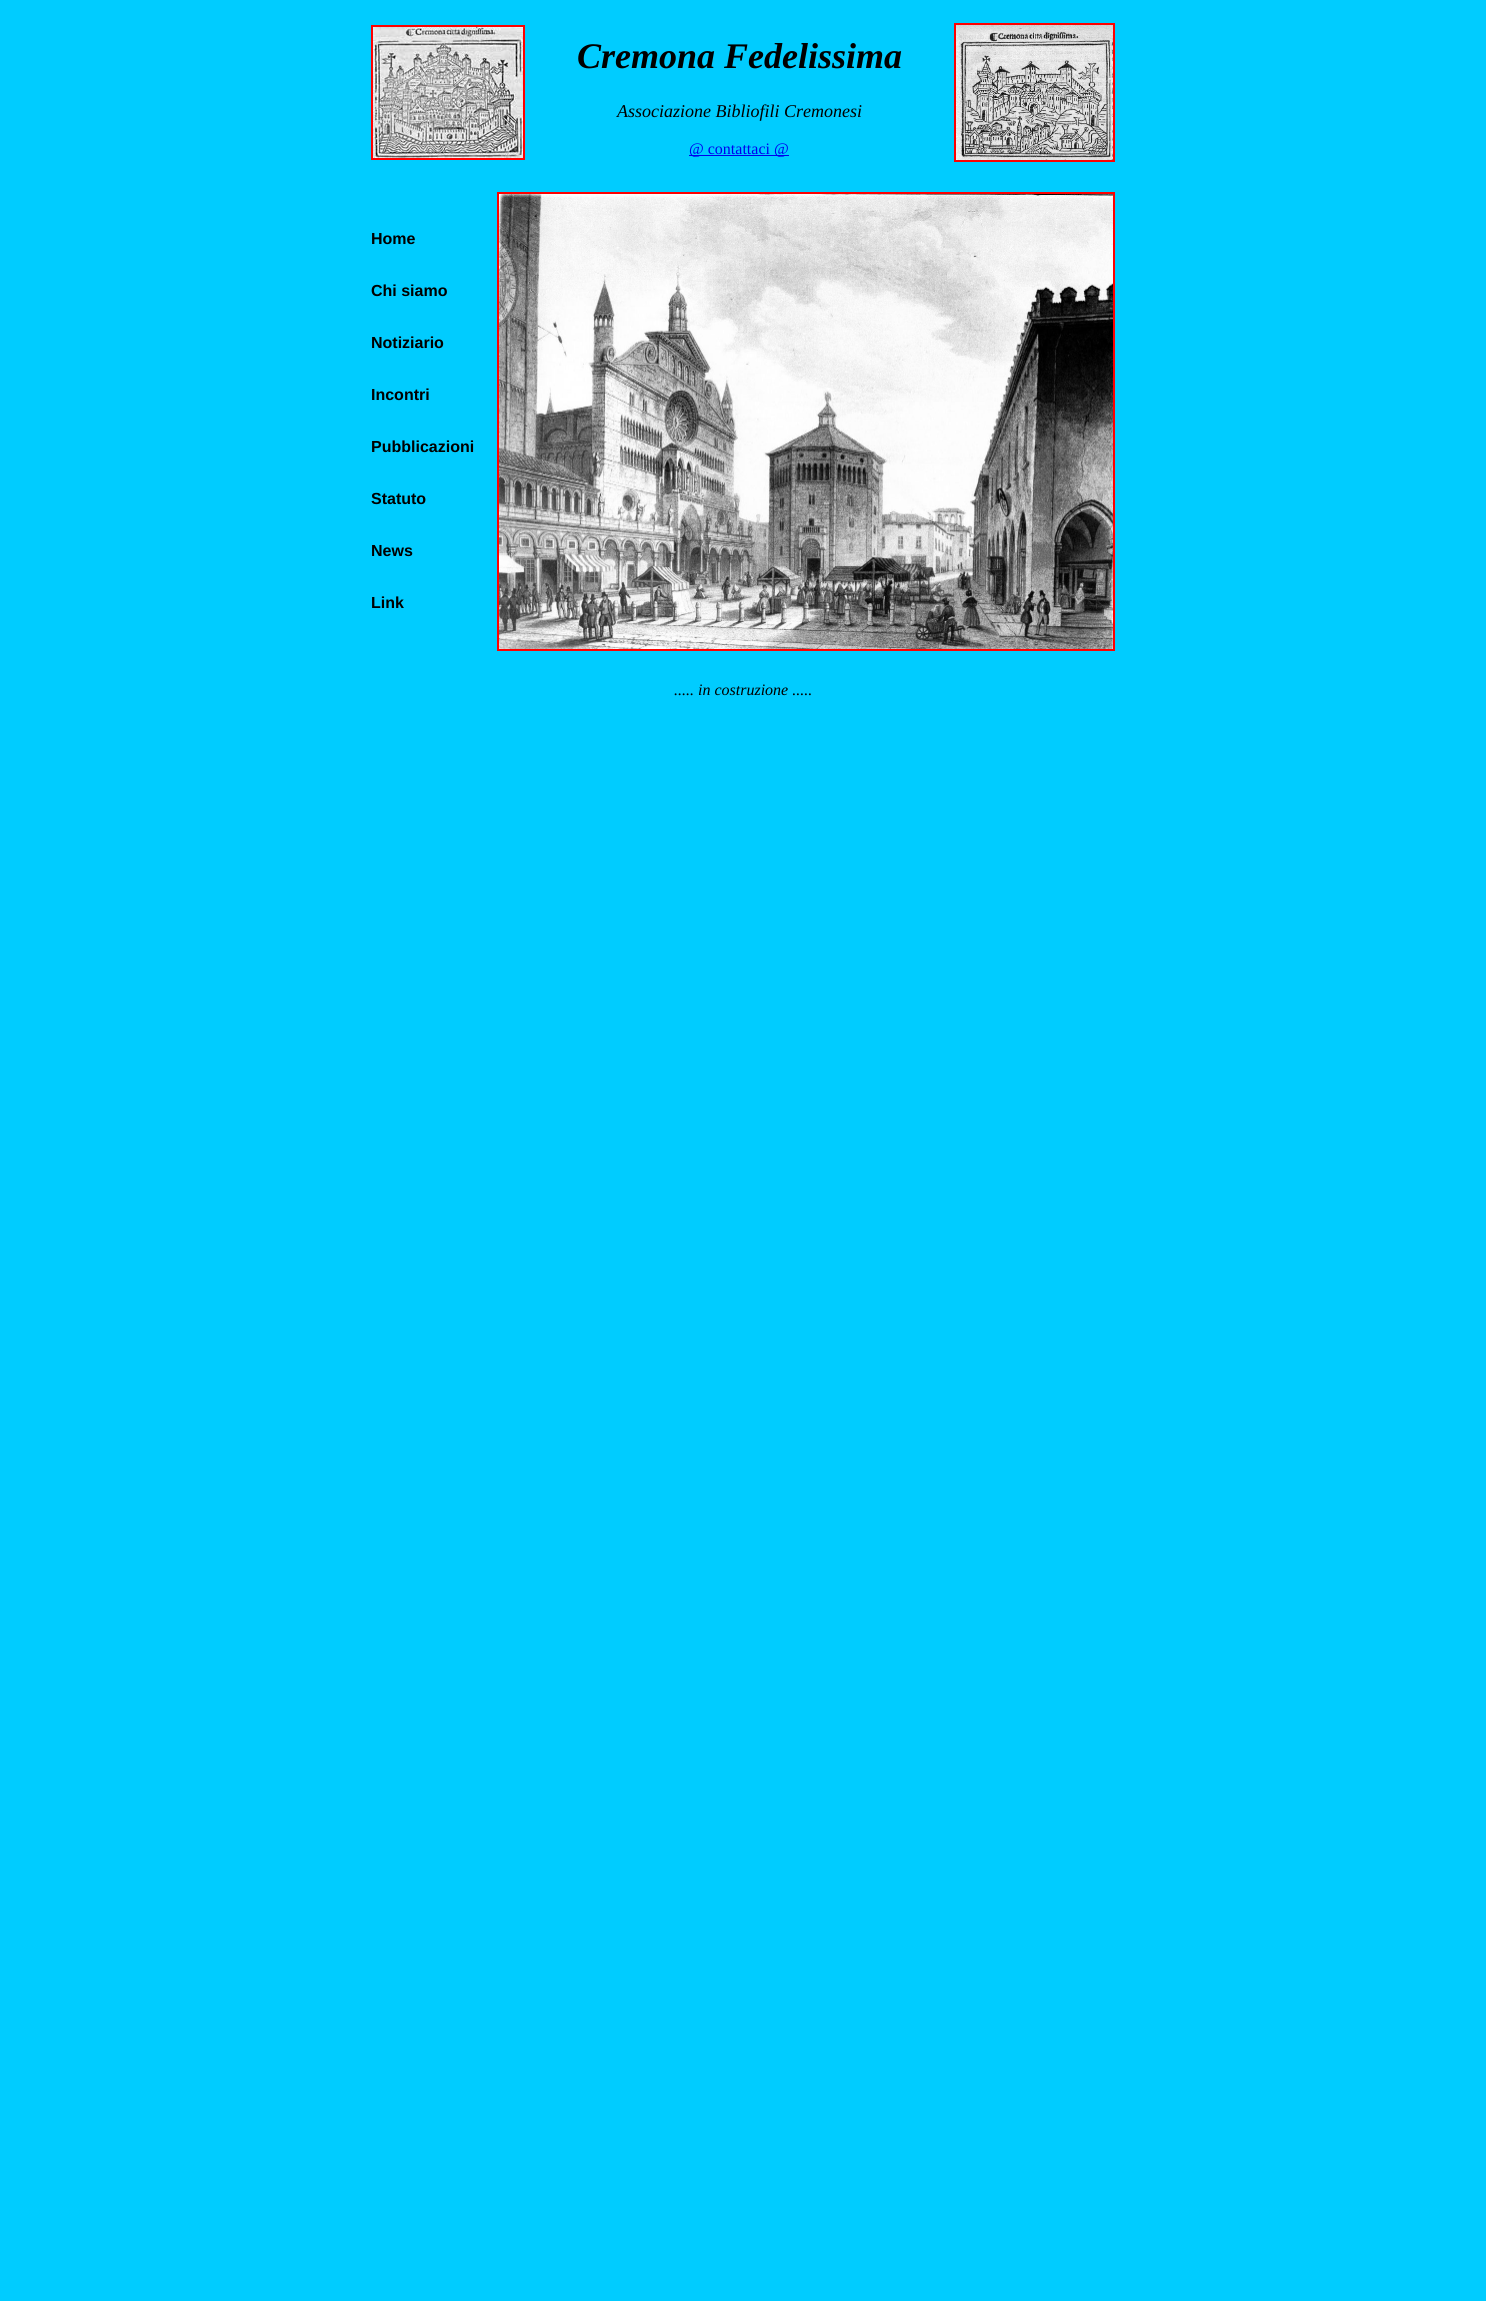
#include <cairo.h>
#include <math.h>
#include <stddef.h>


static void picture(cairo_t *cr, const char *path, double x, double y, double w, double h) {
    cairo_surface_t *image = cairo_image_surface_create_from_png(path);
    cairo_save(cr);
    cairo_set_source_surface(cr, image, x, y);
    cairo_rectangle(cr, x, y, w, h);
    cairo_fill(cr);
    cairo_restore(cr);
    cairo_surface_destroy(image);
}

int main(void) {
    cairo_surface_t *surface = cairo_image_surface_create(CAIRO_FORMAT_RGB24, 1486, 2301);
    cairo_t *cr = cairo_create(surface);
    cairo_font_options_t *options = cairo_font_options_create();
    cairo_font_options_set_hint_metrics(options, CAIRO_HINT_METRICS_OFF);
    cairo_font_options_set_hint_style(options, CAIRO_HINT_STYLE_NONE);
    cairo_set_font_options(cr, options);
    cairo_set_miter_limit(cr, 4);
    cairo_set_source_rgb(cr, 0, 0.8, 1);
    cairo_paint(cr);
    cairo_rectangle(cr, 372, 26, 152, 133);
    cairo_set_source_rgb(cr, 1, 0, 0);
    cairo_stroke(cr);
    picture(cr, "img1.png", 373, 27, 150, 131);
    cairo_select_font_face(cr, "Liberation Serif", CAIRO_FONT_SLANT_ITALIC, CAIRO_FONT_WEIGHT_BOLD);
    cairo_set_font_size(cr, 36);
    cairo_set_source_rgb(cr, 0, 0, 0);
    cairo_move_to(cr, 577, 68);
    cairo_show_text(cr, "Cremona Fedelissima");
    cairo_select_font_face(cr, "Liberation Serif", CAIRO_FONT_SLANT_ITALIC, CAIRO_FONT_WEIGHT_NORMAL);
    cairo_set_font_size(cr, 18);
    cairo_move_to(cr, 617, 117);
    cairo_show_text(cr, "Associazione Bibliofili Cremonesi");
    cairo_set_source_rgb(cr, 0, 0, 0.933);
    cairo_rectangle(cr, 689, 155, 100, 1);
    cairo_fill(cr);
    cairo_select_font_face(cr, "Liberation Serif", CAIRO_FONT_SLANT_NORMAL, CAIRO_FONT_WEIGHT_NORMAL);
    cairo_set_font_size(cr, 16);
    cairo_move_to(cr, 689, 154);
    cairo_show_text(cr, "@ contattaci @");
    cairo_rectangle(cr, 955, 24, 159, 137);
    cairo_set_source_rgb(cr, 1, 0, 0);
    cairo_stroke(cr);
    picture(cr, "img2.png", 956, 25, 157, 135);
    cairo_select_font_face(cr, "Liberation Sans", CAIRO_FONT_SLANT_NORMAL, CAIRO_FONT_WEIGHT_BOLD);
    cairo_set_source_rgb(cr, 0, 0, 0);
    cairo_move_to(cr, 371, 244);
    cairo_show_text(cr, "Home");
    cairo_move_to(cr, 371, 296);
    cairo_show_text(cr, "Chi siamo");
    cairo_move_to(cr, 371, 348);
    cairo_show_text(cr, "Notiziario");
    cairo_move_to(cr, 371, 400);
    cairo_show_text(cr, "Incontri");
    cairo_move_to(cr, 371, 452);
    cairo_show_text(cr, "Pubblicazioni");
    cairo_move_to(cr, 371, 504);
    cairo_show_text(cr, "Statuto");
    cairo_move_to(cr, 371, 556);
    cairo_show_text(cr, "News");
    cairo_move_to(cr, 371, 608);
    cairo_show_text(cr, "Link");
    cairo_rectangle(cr, 498, 193, 616, 457);
    cairo_set_source_rgb(cr, 1, 0, 0);
    cairo_stroke(cr);
    picture(cr, "img3.png", 499, 194, 614, 455);
    cairo_select_font_face(cr, "Liberation Serif", CAIRO_FONT_SLANT_ITALIC, CAIRO_FONT_WEIGHT_NORMAL);
    cairo_set_source_rgb(cr, 0, 0, 0);
    cairo_move_to(cr, 674, 695);
    cairo_show_text(cr, "..... in costruzione .....");
    cairo_surface_write_to_png(surface, "page.png");
    cairo_font_options_destroy(options);
    cairo_destroy(cr);
    cairo_surface_destroy(surface);
    return 0;
}
